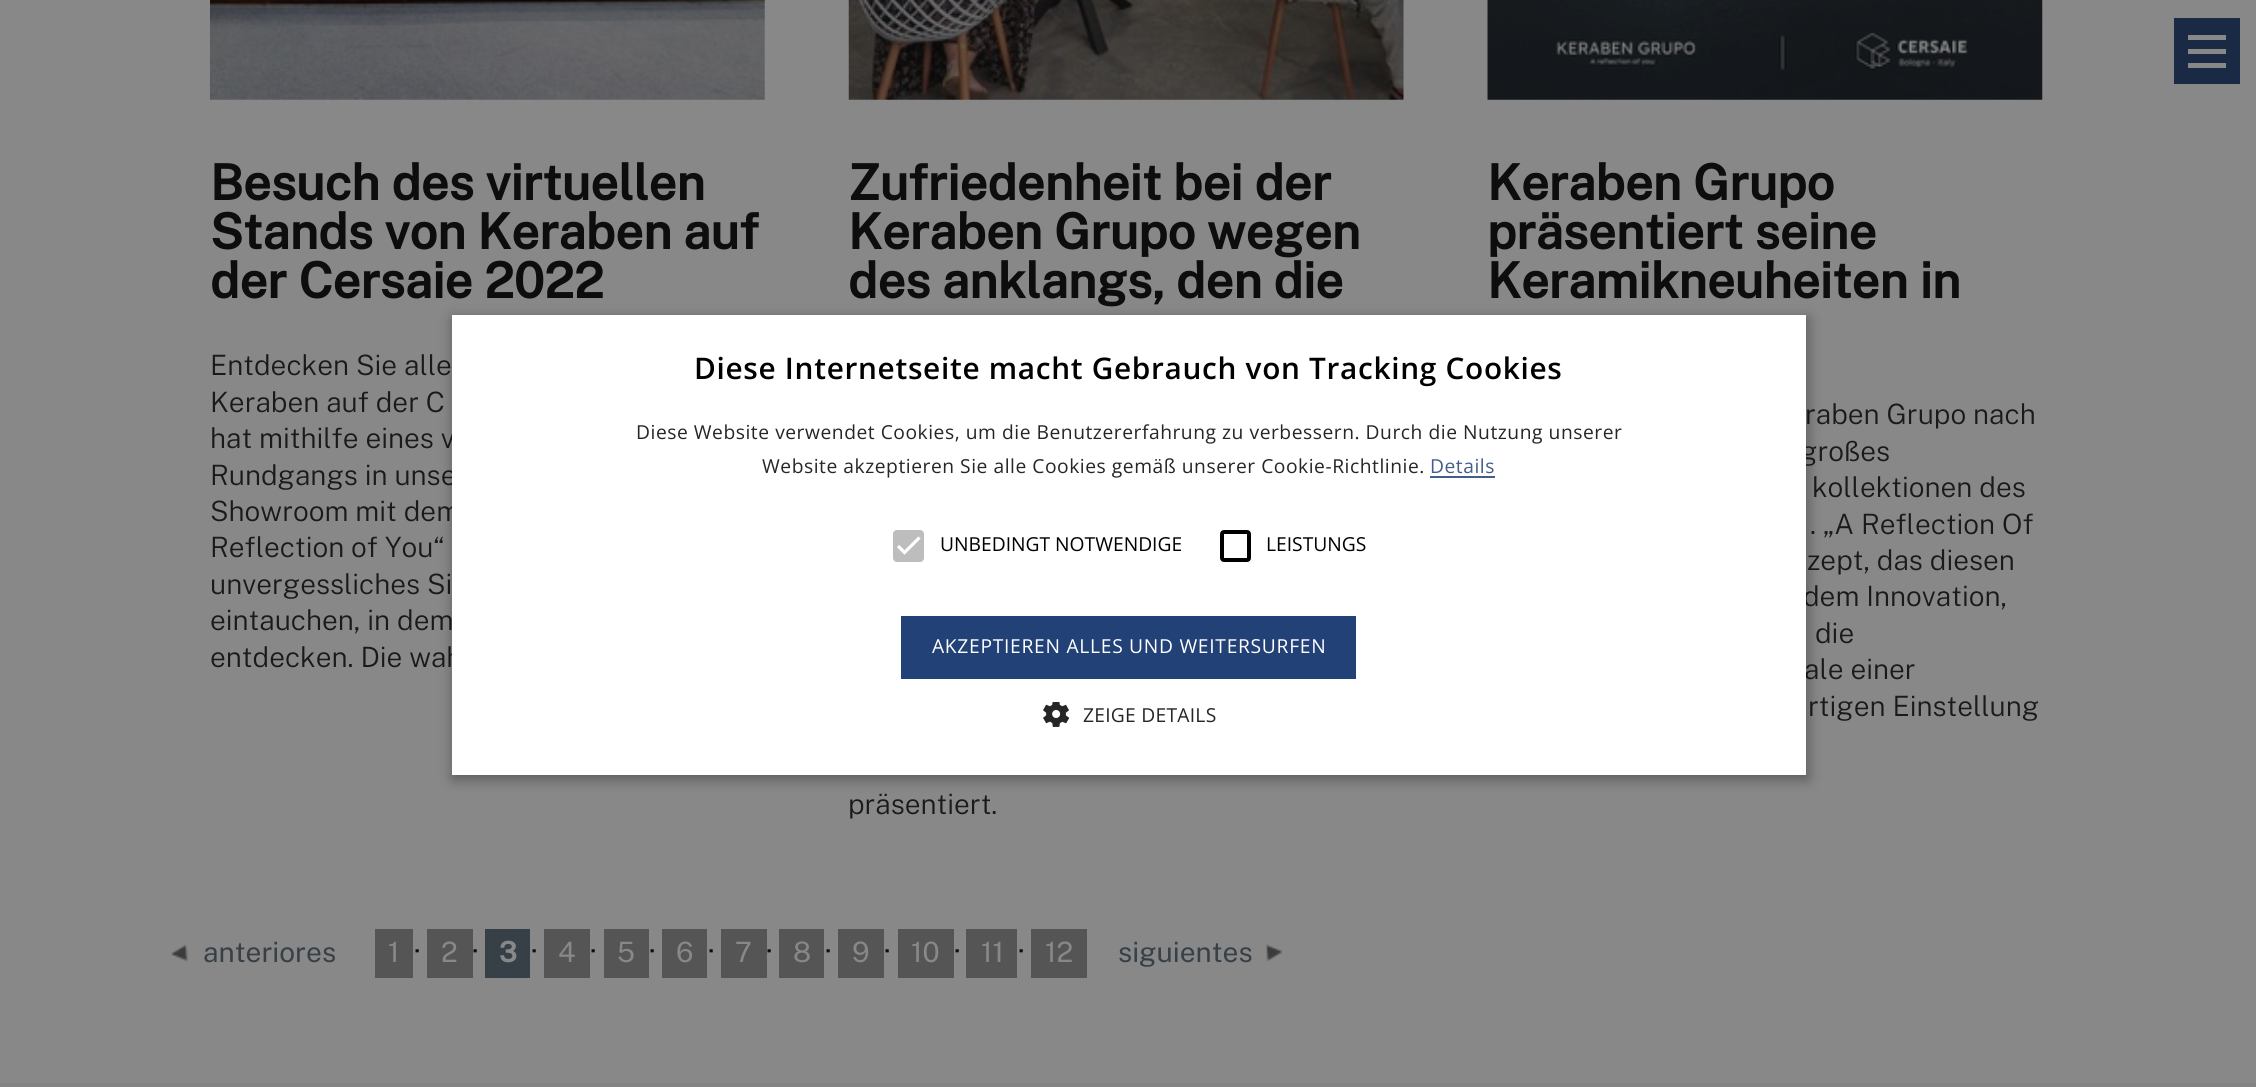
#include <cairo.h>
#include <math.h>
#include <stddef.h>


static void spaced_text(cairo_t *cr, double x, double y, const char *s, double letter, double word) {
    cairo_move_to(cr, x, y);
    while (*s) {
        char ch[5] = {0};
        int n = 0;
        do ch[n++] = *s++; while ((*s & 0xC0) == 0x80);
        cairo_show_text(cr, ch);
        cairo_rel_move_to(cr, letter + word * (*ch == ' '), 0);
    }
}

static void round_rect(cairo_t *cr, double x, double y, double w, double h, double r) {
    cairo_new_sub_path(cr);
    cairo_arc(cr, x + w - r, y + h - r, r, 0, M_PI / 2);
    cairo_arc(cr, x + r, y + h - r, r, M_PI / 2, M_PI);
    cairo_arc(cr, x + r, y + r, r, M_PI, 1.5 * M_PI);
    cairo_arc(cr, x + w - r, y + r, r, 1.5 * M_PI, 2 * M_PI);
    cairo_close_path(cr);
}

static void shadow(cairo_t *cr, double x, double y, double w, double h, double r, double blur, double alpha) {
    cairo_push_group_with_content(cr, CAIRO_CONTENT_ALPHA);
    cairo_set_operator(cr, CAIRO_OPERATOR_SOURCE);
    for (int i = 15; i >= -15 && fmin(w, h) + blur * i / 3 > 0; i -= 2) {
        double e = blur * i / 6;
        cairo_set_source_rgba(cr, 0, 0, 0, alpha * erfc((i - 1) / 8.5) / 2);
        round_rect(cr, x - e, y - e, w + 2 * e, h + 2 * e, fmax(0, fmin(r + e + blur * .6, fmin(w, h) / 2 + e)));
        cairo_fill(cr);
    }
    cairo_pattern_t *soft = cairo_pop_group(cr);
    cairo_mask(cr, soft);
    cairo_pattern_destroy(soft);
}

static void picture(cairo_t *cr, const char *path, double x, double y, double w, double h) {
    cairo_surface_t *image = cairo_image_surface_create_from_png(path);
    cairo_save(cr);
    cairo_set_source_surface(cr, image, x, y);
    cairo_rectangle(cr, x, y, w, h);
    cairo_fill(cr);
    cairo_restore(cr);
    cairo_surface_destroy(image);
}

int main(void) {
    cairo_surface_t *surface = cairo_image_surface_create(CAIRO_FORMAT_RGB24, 2256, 1087);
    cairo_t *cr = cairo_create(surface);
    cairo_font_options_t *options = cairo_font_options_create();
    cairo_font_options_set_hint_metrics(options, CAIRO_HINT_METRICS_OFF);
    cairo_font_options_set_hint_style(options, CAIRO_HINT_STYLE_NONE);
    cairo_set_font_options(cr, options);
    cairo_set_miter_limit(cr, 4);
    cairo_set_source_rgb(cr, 0.533, 0.533, 0.533);
    cairo_paint(cr);
    cairo_set_source_rgb(cr, 0.102, 0.161, 0.267);
    cairo_rectangle(cr, 2174, 18, 66, 66);
    cairo_fill(cr);
    cairo_set_source_rgb(cr, 0.533, 0.533, 0.533);
    cairo_rectangle(cr, 2188, 49, 38, 5);
    cairo_fill(cr);
    cairo_rectangle(cr, 2188, 35, 38, 5);
    cairo_fill(cr);
    cairo_rectangle(cr, 2188, 63, 38, 5);
    cairo_fill(cr);
    picture(cr, "img1.png", 210, 0, 555, 100);
    cairo_select_font_face(cr, "Public Sans", CAIRO_FONT_SLANT_NORMAL, CAIRO_FONT_WEIGHT_BOLD);
    cairo_set_font_size(cr, 49);
    cairo_set_source_rgb(cr, 0.051, 0.051, 0.051);
    cairo_move_to(cr, 210, 200);
    cairo_show_text(cr, "Besuch des virtuellen");
    cairo_move_to(cr, 210, 249);
    cairo_show_text(cr, "Stands von Keraben auf");
    cairo_move_to(cr, 210, 298);
    cairo_show_text(cr, "der Cersaie 2022");
    cairo_select_font_face(cr, "Public Sans Light", CAIRO_FONT_SLANT_NORMAL, CAIRO_FONT_WEIGHT_NORMAL);
    cairo_set_font_size(cr, 28);
    cairo_set_source_rgb(cr, 0.102, 0.102, 0.102);
    cairo_move_to(cr, 210, 375);
    cairo_show_text(cr, "Entdecken Sie alle");
    cairo_move_to(cr, 210, 412);
    cairo_show_text(cr, "Keraben auf der C");
    cairo_move_to(cr, 210, 448);
    cairo_show_text(cr, "hat mithilfe eines v");
    cairo_move_to(cr, 210, 485);
    cairo_show_text(cr, "Rundgangs in unse");
    cairo_move_to(cr, 210, 521);
    cairo_show_text(cr, "Showroom mit dem");
    cairo_move_to(cr, 210, 557);
    cairo_show_text(cr, "Reflection of You“");
    cairo_move_to(cr, 210, 594);
    cairo_show_text(cr, "unvergessliches Si");
    cairo_move_to(cr, 210, 630);
    cairo_show_text(cr, "eintauchen, in dem");
    cairo_move_to(cr, 210, 667);
    cairo_show_text(cr, "entdecken. Die wah");
    picture(cr, "img2.png", 848, 0, 556, 100);
    cairo_select_font_face(cr, "Public Sans", CAIRO_FONT_SLANT_NORMAL, CAIRO_FONT_WEIGHT_BOLD);
    cairo_set_font_size(cr, 49);
    cairo_set_source_rgb(cr, 0.051, 0.051, 0.051);
    cairo_move_to(cr, 848, 200);
    cairo_show_text(cr, "Zufriedenheit bei der");
    cairo_move_to(cr, 848, 249);
    cairo_show_text(cr, "Keraben Grupo wegen");
    cairo_move_to(cr, 848, 298);
    cairo_show_text(cr, "des anklangs, den die");
    cairo_select_font_face(cr, "Public Sans Light", CAIRO_FONT_SLANT_NORMAL, CAIRO_FONT_WEIGHT_NORMAL);
    cairo_set_font_size(cr, 28);
    cairo_set_source_rgb(cr, 0.102, 0.102, 0.102);
    cairo_move_to(cr, 848, 814);
    cairo_show_text(cr, "präsentiert.");
    picture(cr, "img3.png", 1487, 0, 556, 100);
    cairo_select_font_face(cr, "Public Sans", CAIRO_FONT_SLANT_NORMAL, CAIRO_FONT_WEIGHT_BOLD);
    cairo_set_font_size(cr, 49);
    cairo_set_source_rgb(cr, 0.051, 0.051, 0.051);
    cairo_move_to(cr, 1487, 200);
    cairo_show_text(cr, "Keraben Grupo");
    cairo_move_to(cr, 1487, 249);
    cairo_show_text(cr, "präsentiert seine");
    cairo_move_to(cr, 1487, 298);
    cairo_show_text(cr, "Keramikneuheiten in");
    cairo_select_font_face(cr, "Public Sans Light", CAIRO_FONT_SLANT_NORMAL, CAIRO_FONT_WEIGHT_NORMAL);
    cairo_set_font_size(cr, 28);
    cairo_set_source_rgb(cr, 0.102, 0.102, 0.102);
    cairo_move_to(cr, 1805, 424);
    cairo_show_text(cr, "raben Grupo nach");
    cairo_move_to(cr, 1800, 461);
    cairo_show_text(cr, "großes");
    cairo_move_to(cr, 1812, 497);
    cairo_show_text(cr, "kollektionen des");
    cairo_move_to(cr, 1810, 534);
    cairo_show_text(cr, ". „A Reflection Of");
    cairo_move_to(cr, 1807, 570);
    cairo_show_text(cr, "zept, das diesen");
    cairo_move_to(cr, 1803, 606);
    cairo_show_text(cr, "dem Innovation,");
    cairo_move_to(cr, 1815, 643);
    cairo_show_text(cr, "die");
    cairo_move_to(cr, 1804, 679);
    cairo_show_text(cr, "ale einer");
    cairo_move_to(cr, 1808, 716);
    cairo_show_text(cr, "rtigen Einstellung");
    picture(cr, "img4.png", 171, 944, 17, 18);
    cairo_select_font_face(cr, "Public Sans", CAIRO_FONT_SLANT_NORMAL, CAIRO_FONT_WEIGHT_NORMAL);
    cairo_set_source_rgb(cr, 0.216, 0.251, 0.278);
    cairo_move_to(cr, 203, 962);
    cairo_show_text(cr, "anteriores");
    cairo_set_source_rgb(cr, 0.333, 0.333, 0.333);
    cairo_rectangle(cr, 375, 929, 38, 49);
    cairo_fill(cr);
    cairo_set_source_rgb(cr, 0.533, 0.533, 0.533);
    cairo_move_to(cr, 388, 962);
    cairo_show_text(cr, "1");
    cairo_set_source_rgb(cr, 0.051, 0.051, 0.051);
    cairo_move_to(cr, 414, 961);
    cairo_show_text(cr, "·");
    cairo_set_source_rgb(cr, 0.333, 0.333, 0.333);
    cairo_rectangle(cr, 427, 929, 46, 49);
    cairo_fill(cr);
    cairo_set_source_rgb(cr, 0.533, 0.533, 0.533);
    cairo_move_to(cr, 441, 962);
    cairo_show_text(cr, "2");
    cairo_set_source_rgb(cr, 0.051, 0.051, 0.051);
    cairo_move_to(cr, 472, 961);
    cairo_show_text(cr, "·");
    cairo_set_source_rgb(cr, 0.216, 0.251, 0.278);
    cairo_rectangle(cr, 485, 929, 45, 49);
    cairo_fill(cr);
    cairo_select_font_face(cr, "Public Sans", CAIRO_FONT_SLANT_NORMAL, CAIRO_FONT_WEIGHT_BOLD);
    cairo_set_source_rgb(cr, 0.533, 0.533, 0.533);
    cairo_move_to(cr, 499, 962);
    cairo_show_text(cr, "3");
    cairo_select_font_face(cr, "Public Sans", CAIRO_FONT_SLANT_NORMAL, CAIRO_FONT_WEIGHT_NORMAL);
    cairo_set_source_rgb(cr, 0.051, 0.051, 0.051);
    cairo_move_to(cr, 531, 961);
    cairo_show_text(cr, "·");
    cairo_set_source_rgb(cr, 0.333, 0.333, 0.333);
    cairo_rectangle(cr, 544, 929, 46, 49);
    cairo_fill(cr);
    cairo_set_source_rgb(cr, 0.533, 0.533, 0.533);
    cairo_move_to(cr, 558, 962);
    cairo_show_text(cr, "4");
    cairo_set_source_rgb(cr, 0.051, 0.051, 0.051);
    cairo_move_to(cr, 590, 961);
    cairo_show_text(cr, "·");
    cairo_set_source_rgb(cr, 0.333, 0.333, 0.333);
    cairo_rectangle(cr, 604, 929, 45, 49);
    cairo_fill(cr);
    cairo_set_source_rgb(cr, 0.533, 0.533, 0.533);
    cairo_move_to(cr, 617, 962);
    cairo_show_text(cr, "5");
    cairo_set_source_rgb(cr, 0.051, 0.051, 0.051);
    cairo_move_to(cr, 649, 961);
    cairo_show_text(cr, "·");
    cairo_set_source_rgb(cr, 0.333, 0.333, 0.333);
    cairo_rectangle(cr, 662, 929, 45, 49);
    cairo_fill(cr);
    cairo_set_source_rgb(cr, 0.533, 0.533, 0.533);
    cairo_move_to(cr, 676, 962);
    cairo_show_text(cr, "6");
    cairo_set_source_rgb(cr, 0.051, 0.051, 0.051);
    cairo_move_to(cr, 708, 961);
    cairo_show_text(cr, "·");
    cairo_set_source_rgb(cr, 0.333, 0.333, 0.333);
    cairo_rectangle(cr, 721, 929, 46, 49);
    cairo_fill(cr);
    cairo_set_source_rgb(cr, 0.533, 0.533, 0.533);
    cairo_move_to(cr, 735, 962);
    cairo_show_text(cr, "7");
    cairo_set_source_rgb(cr, 0.051, 0.051, 0.051);
    cairo_move_to(cr, 766, 961);
    cairo_show_text(cr, "·");
    cairo_set_source_rgb(cr, 0.333, 0.333, 0.333);
    cairo_rectangle(cr, 779, 929, 45, 49);
    cairo_fill(cr);
    cairo_set_source_rgb(cr, 0.533, 0.533, 0.533);
    cairo_move_to(cr, 793, 962);
    cairo_show_text(cr, "8");
    cairo_set_source_rgb(cr, 0.051, 0.051, 0.051);
    cairo_move_to(cr, 825, 961);
    cairo_show_text(cr, "·");
    cairo_set_source_rgb(cr, 0.333, 0.333, 0.333);
    cairo_rectangle(cr, 838, 929, 46, 49);
    cairo_fill(cr);
    cairo_set_source_rgb(cr, 0.533, 0.533, 0.533);
    cairo_move_to(cr, 852, 962);
    cairo_show_text(cr, "9");
    cairo_set_source_rgb(cr, 0.051, 0.051, 0.051);
    cairo_move_to(cr, 884, 961);
    cairo_show_text(cr, "·");
    cairo_set_source_rgb(cr, 0.333, 0.333, 0.333);
    cairo_rectangle(cr, 898, 929, 56, 49);
    cairo_fill(cr);
    cairo_set_source_rgb(cr, 0.533, 0.533, 0.533);
    cairo_move_to(cr, 911, 962);
    cairo_show_text(cr, "10");
    cairo_set_source_rgb(cr, 0.051, 0.051, 0.051);
    cairo_move_to(cr, 954, 961);
    cairo_show_text(cr, "·");
    cairo_set_source_rgb(cr, 0.333, 0.333, 0.333);
    cairo_rectangle(cr, 966, 929, 51, 49);
    cairo_fill(cr);
    cairo_set_source_rgb(cr, 0.533, 0.533, 0.533);
    cairo_move_to(cr, 981, 962);
    cairo_show_text(cr, "11");
    cairo_set_source_rgb(cr, 0.051, 0.051, 0.051);
    cairo_move_to(cr, 1018, 961);
    cairo_show_text(cr, "·");
    cairo_set_source_rgb(cr, 0.333, 0.333, 0.333);
    cairo_rectangle(cr, 1031, 929, 56, 49);
    cairo_fill(cr);
    cairo_set_source_rgb(cr, 0.533, 0.533, 0.533);
    cairo_move_to(cr, 1045, 962);
    cairo_show_text(cr, "12");
    picture(cr, "img5.png", 1265, 944, 18, 18);
    cairo_set_source_rgb(cr, 0.216, 0.251, 0.278);
    cairo_move_to(cr, 1118, 962);
    cairo_show_text(cr, "siguientes");
    cairo_set_source_rgb(cr, 0.51, 0.51, 0.514);
    cairo_rectangle(cr, 0, 1083, 2256, 4);
    cairo_fill(cr);
    cairo_set_source_rgb(cr, 0, 0, 0);
    shadow(cr, 453, 319, 1355, 460, 0, 7, 0.35);
    cairo_set_source_rgb(cr, 1, 1, 1);
    cairo_rectangle(cr, 452, 315, 1354, 460);
    cairo_fill(cr);
    cairo_select_font_face(cr, "Open Sans SemiBold", CAIRO_FONT_SLANT_NORMAL, CAIRO_FONT_WEIGHT_NORMAL);
    cairo_set_font_size(cr, 29.75);
    cairo_set_source_rgb(cr, 0, 0, 0);
    spaced_text(cr, 694, 379, "Diese Internetseite macht Gebrauch von Tracking Cookies", 0.7, 0);
    cairo_select_font_face(cr, "Open Sans", CAIRO_FONT_SLANT_NORMAL, CAIRO_FONT_WEIGHT_NORMAL);
    cairo_set_font_size(cr, 19.25);
    cairo_set_source_rgb(cr, 0.149, 0.149, 0.149);
    spaced_text(cr, 636, 439, "Diese Website verwendet Cookies, um die Benutzererfahrung zu verbessern. Durch die Nutzung unserer", 0.53, 0);
    spaced_text(cr, 762, 473, "Website akzeptieren Sie alle Cookies gemäß unserer Cookie-Richtlinie.", 0.53, 0);
    cairo_set_source_rgb(cr, 0.263, 0.369, 0.545);
    spaced_text(cr, 1430, 473, "Details", 0.53, 0);
    cairo_rectangle(cr, 1430, 476, 65, 2);
    cairo_fill(cr);
    cairo_set_source_rgb(cr, 0.741, 0.741, 0.741);
    round_rect(cr, 893, 530, 31, 32, 4);
    cairo_fill(cr);
    cairo_new_path(cr);
    cairo_move_to(cr, 898, 546);
    cairo_line_to(cr, 904.5, 552.5);
    cairo_line_to(cr, 919.5, 537.5);
    cairo_set_source_rgb(cr, 1, 1, 1);
    cairo_set_line_width(cr, 3.2);
    cairo_stroke(cr);
    cairo_set_source_rgb(cr, 0, 0, 0);
    cairo_move_to(cr, 940, 551);
    cairo_show_text(cr, "UNBEDINGT NOTWENDIGE");
    round_rect(cr, 1222, 532, 27, 28, 2);
    cairo_set_line_width(cr, 4);
    cairo_stroke(cr);
    cairo_move_to(cr, 1266, 551);
    cairo_show_text(cr, "LEISTUNGS");
    cairo_set_source_rgb(cr, 0.133, 0.255, 0.467);
    cairo_rectangle(cr, 901, 616, 455, 63);
    cairo_fill(cr);
    cairo_set_source_rgb(cr, 1, 1, 1);
    spaced_text(cr, 932, 653, "AKZEPTIEREN ALLES UND WEITERSURFEN", 0.7, 0);
    picture(cr, "img6.png", 1043, 702, 26, 25);
    cairo_set_source_rgb(cr, 0.149, 0.149, 0.149);
    spaced_text(cr, 1083, 722, "ZEIGE DETAILS", 0.25, 0);
    cairo_surface_write_to_png(surface, "page.png");
    cairo_font_options_destroy(options);
    cairo_destroy(cr);
    cairo_surface_destroy(surface);
    return 0;
}
